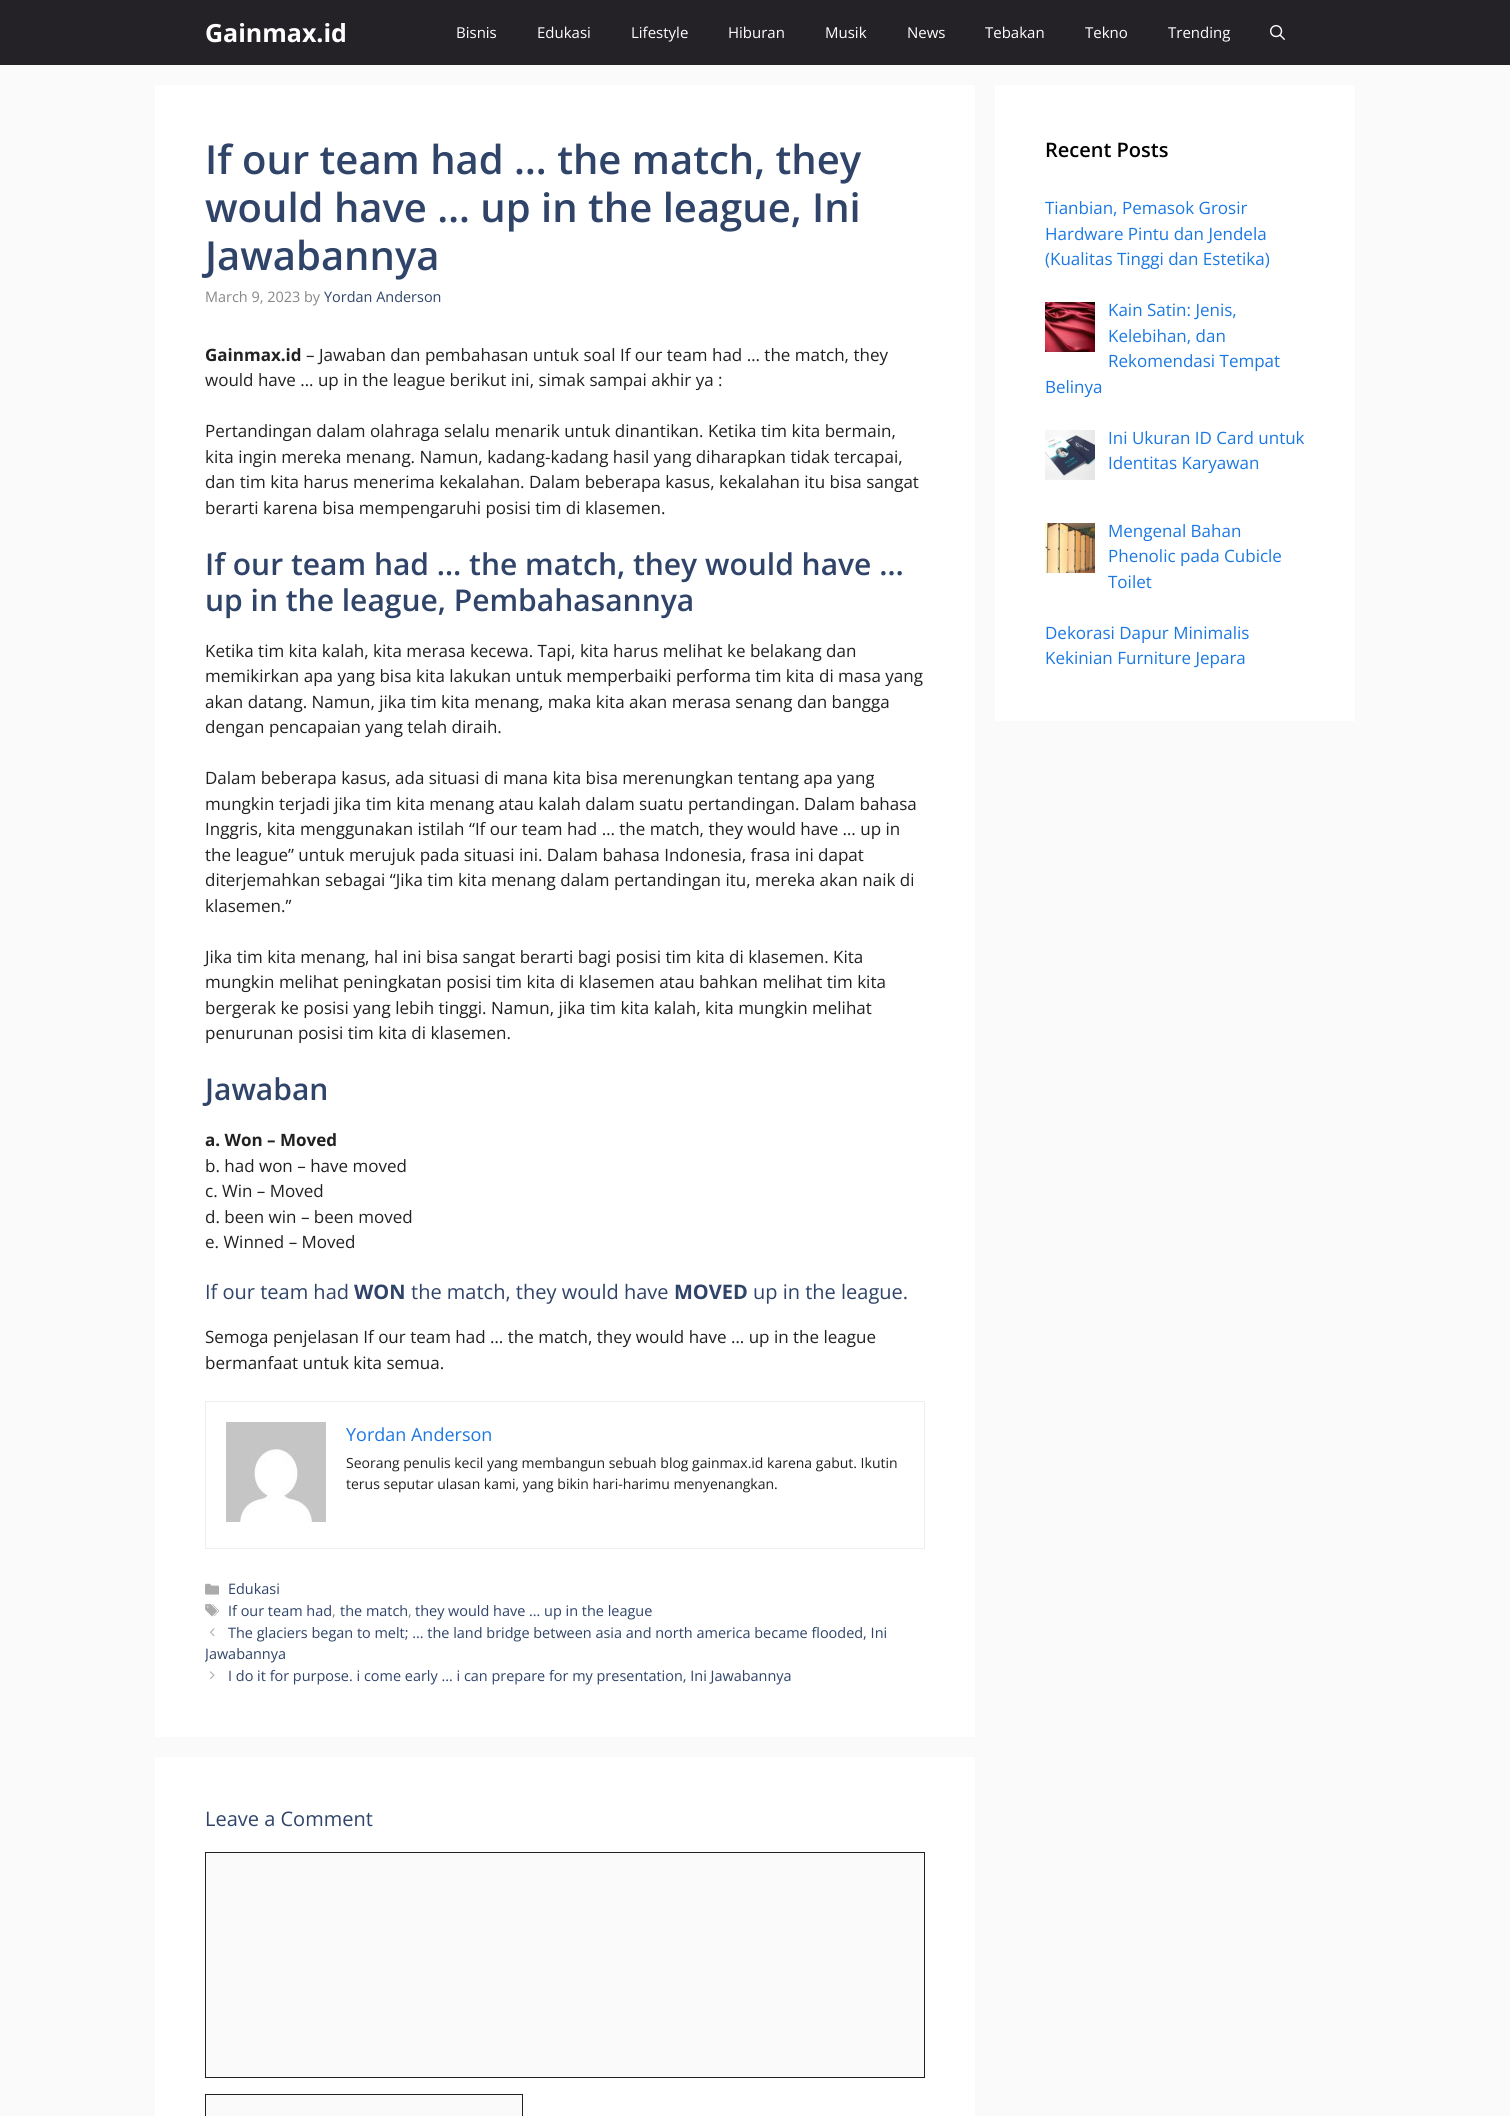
#include <cairo.h>
#include <math.h>
#include <stddef.h>


static void picture(cairo_t *cr, const char *path, double x, double y, double w, double h) {
    cairo_surface_t *image = cairo_image_surface_create_from_png(path);
    cairo_save(cr);
    cairo_set_source_surface(cr, image, x, y);
    cairo_rectangle(cr, x, y, w, h);
    cairo_fill(cr);
    cairo_restore(cr);
    cairo_surface_destroy(image);
}

int main(void) {
    cairo_surface_t *surface = cairo_image_surface_create(CAIRO_FORMAT_RGB24, 1510, 2116);
    cairo_t *cr = cairo_create(surface);
    cairo_font_options_t *options = cairo_font_options_create();
    cairo_font_options_set_hint_metrics(options, CAIRO_HINT_METRICS_OFF);
    cairo_font_options_set_hint_style(options, CAIRO_HINT_STYLE_NONE);
    cairo_set_font_options(cr, options);
    cairo_set_miter_limit(cr, 4);
    cairo_set_source_rgb(cr, 0.98, 0.98, 0.98);
    cairo_paint(cr);
    cairo_set_source_rgb(cr, 0.141, 0.133, 0.149);
    cairo_rectangle(cr, 0, 0, 1510, 65);
    cairo_fill(cr);
    cairo_select_font_face(cr, "Open Sans", CAIRO_FONT_SLANT_NORMAL, CAIRO_FONT_WEIGHT_BOLD);
    cairo_set_font_size(cr, 25);
    cairo_set_source_rgb(cr, 1, 1, 1);
    cairo_move_to(cr, 205, 42);
    cairo_show_text(cr, "Gainmax.id");
    cairo_select_font_face(cr, "Open Sans", CAIRO_FONT_SLANT_NORMAL, CAIRO_FONT_WEIGHT_NORMAL);
    cairo_set_font_size(cr, 15);
    cairo_move_to(cr, 456, 38);
    cairo_show_text(cr, "Bisnis");
    cairo_move_to(cr, 537, 38);
    cairo_show_text(cr, "Edukasi");
    cairo_move_to(cr, 631, 38);
    cairo_show_text(cr, "Lifestyle");
    cairo_move_to(cr, 728, 38);
    cairo_show_text(cr, "Hiburan");
    cairo_move_to(cr, 825, 38);
    cairo_show_text(cr, "Musik");
    cairo_move_to(cr, 907, 38);
    cairo_show_text(cr, "News");
    cairo_move_to(cr, 985, 38);
    cairo_show_text(cr, "Tebakan");
    cairo_move_to(cr, 1085, 38);
    cairo_show_text(cr, "Tekno");
    cairo_move_to(cr, 1168, 38);
    cairo_show_text(cr, "Trending");
    picture(cr, "img1.png", 1270, 25, 15, 15);
    cairo_rectangle(cr, 155, 85, 820, 1652);
    cairo_fill(cr);
    cairo_select_font_face(cr, "Open Sans SemiBold", CAIRO_FONT_SLANT_NORMAL, CAIRO_FONT_WEIGHT_NORMAL);
    cairo_set_font_size(cr, 40);
    cairo_set_source_rgb(cr, 0.184, 0.267, 0.408);
    cairo_move_to(cr, 205, 174);
    cairo_show_text(cr, "If our team had … the match, they");
    cairo_move_to(cr, 205, 222);
    cairo_show_text(cr, "would have … up in the league, Ini");
    cairo_move_to(cr, 205, 270);
    cairo_show_text(cr, "Jawabannya");
    cairo_select_font_face(cr, "Open Sans", CAIRO_FONT_SLANT_NORMAL, CAIRO_FONT_WEIGHT_NORMAL);
    cairo_set_font_size(cr, 14.45);
    cairo_set_source_rgb(cr, 0.529, 0.529, 0.529);
    cairo_move_to(cr, 205, 302);
    cairo_show_text(cr, "March 9, 2023 by");
    cairo_set_source_rgb(cr, 0.184, 0.267, 0.408);
    cairo_move_to(cr, 324, 302);
    cairo_show_text(cr, "Yordan Anderson");
    cairo_select_font_face(cr, "Open Sans", CAIRO_FONT_SLANT_NORMAL, CAIRO_FONT_WEIGHT_BOLD);
    cairo_set_font_size(cr, 17);
    cairo_set_source_rgb(cr, 0.129, 0.129, 0.129);
    cairo_move_to(cr, 205, 361);
    cairo_show_text(cr, "Gainmax.id");
    cairo_select_font_face(cr, "Open Sans", CAIRO_FONT_SLANT_NORMAL, CAIRO_FONT_WEIGHT_NORMAL);
    cairo_move_to(cr, 306, 361);
    cairo_show_text(cr, "– Jawaban dan pembahasan untuk soal If our team had … the match, they");
    cairo_move_to(cr, 205, 386);
    cairo_show_text(cr, "would have … up in the league berikut ini, simak sampai akhir ya :");
    cairo_move_to(cr, 205, 437);
    cairo_show_text(cr, "Pertandingan dalam olahraga selalu menarik untuk dinantikan. Ketika tim kita bermain,");
    cairo_move_to(cr, 205, 463);
    cairo_show_text(cr, "kita ingin mereka menang. Namun, kadang-kadang hasil yang diharapkan tidak tercapai,");
    cairo_move_to(cr, 205, 488);
    cairo_show_text(cr, "dan tim kita harus menerima kekalahan. Dalam beberapa kasus, kekalahan itu bisa sangat");
    cairo_move_to(cr, 205, 514);
    cairo_show_text(cr, "berarti karena bisa mempengaruhi posisi tim di klasemen.");
    cairo_select_font_face(cr, "Open Sans SemiBold", CAIRO_FONT_SLANT_NORMAL, CAIRO_FONT_WEIGHT_NORMAL);
    cairo_set_font_size(cr, 30);
    cairo_set_source_rgb(cr, 0.184, 0.267, 0.408);
    cairo_move_to(cr, 205, 575);
    cairo_show_text(cr, "If our team had … the match, they would have …");
    cairo_move_to(cr, 205, 611);
    cairo_show_text(cr, "up in the league, Pembahasannya");
    cairo_select_font_face(cr, "Open Sans", CAIRO_FONT_SLANT_NORMAL, CAIRO_FONT_WEIGHT_NORMAL);
    cairo_set_font_size(cr, 17);
    cairo_set_source_rgb(cr, 0.129, 0.129, 0.129);
    cairo_move_to(cr, 205, 657);
    cairo_show_text(cr, "Ketika tim kita kalah, kita merasa kecewa. Tapi, kita harus melihat ke belakang dan");
    cairo_move_to(cr, 205, 682);
    cairo_show_text(cr, "memikirkan apa yang bisa kita lakukan untuk memperbaiki performa tim kita di masa yang");
    cairo_move_to(cr, 205, 708);
    cairo_show_text(cr, "akan datang. Namun, jika tim kita menang, maka kita akan merasa senang dan bangga");
    cairo_move_to(cr, 205, 733);
    cairo_show_text(cr, "dengan pencapaian yang telah diraih.");
    cairo_move_to(cr, 205, 784);
    cairo_show_text(cr, "Dalam beberapa kasus, ada situasi di mana kita bisa merenungkan tentang apa yang");
    cairo_move_to(cr, 205, 810);
    cairo_show_text(cr, "mungkin terjadi jika tim kita menang atau kalah dalam suatu pertandingan. Dalam bahasa");
    cairo_move_to(cr, 205, 835);
    cairo_show_text(cr, "Inggris, kita menggunakan istilah “If our team had … the match, they would have … up in");
    cairo_move_to(cr, 205, 861);
    cairo_show_text(cr, "the league” untuk merujuk pada situasi ini. Dalam bahasa Indonesia, frasa ini dapat");
    cairo_move_to(cr, 205, 886);
    cairo_show_text(cr, "diterjemahkan sebagai “Jika tim kita menang dalam pertandingan itu, mereka akan naik di");
    cairo_move_to(cr, 205, 912);
    cairo_show_text(cr, "klasemen.”");
    cairo_move_to(cr, 205, 963);
    cairo_show_text(cr, "Jika tim kita menang, hal ini bisa sangat berarti bagi posisi tim kita di klasemen. Kita");
    cairo_move_to(cr, 205, 988);
    cairo_show_text(cr, "mungkin melihat peningkatan posisi tim kita di klasemen atau bahkan melihat tim kita");
    cairo_move_to(cr, 205, 1014);
    cairo_show_text(cr, "bergerak ke posisi yang lebih tinggi. Namun, jika tim kita kalah, kita mungkin melihat");
    cairo_move_to(cr, 205, 1039);
    cairo_show_text(cr, "penurunan posisi tim kita di klasemen.");
    cairo_select_font_face(cr, "Open Sans SemiBold", CAIRO_FONT_SLANT_NORMAL, CAIRO_FONT_WEIGHT_NORMAL);
    cairo_set_font_size(cr, 30);
    cairo_set_source_rgb(cr, 0.184, 0.267, 0.408);
    cairo_move_to(cr, 205, 1100);
    cairo_show_text(cr, "Jawaban");
    cairo_select_font_face(cr, "Open Sans", CAIRO_FONT_SLANT_NORMAL, CAIRO_FONT_WEIGHT_BOLD);
    cairo_set_font_size(cr, 17);
    cairo_set_source_rgb(cr, 0.129, 0.129, 0.129);
    cairo_move_to(cr, 205, 1146);
    cairo_show_text(cr, "a. Won – Moved");
    cairo_select_font_face(cr, "Open Sans", CAIRO_FONT_SLANT_NORMAL, CAIRO_FONT_WEIGHT_NORMAL);
    cairo_move_to(cr, 205, 1172);
    cairo_show_text(cr, "b. had won – have moved");
    cairo_move_to(cr, 205, 1197);
    cairo_show_text(cr, "c. Win – Moved");
    cairo_move_to(cr, 205, 1223);
    cairo_show_text(cr, "d. been win – been moved");
    cairo_move_to(cr, 205, 1248);
    cairo_show_text(cr, "e. Winned – Moved");
    cairo_set_font_size(cr, 20);
    cairo_set_source_rgb(cr, 0.184, 0.267, 0.408);
    cairo_move_to(cr, 205, 1299);
    cairo_show_text(cr, "If our team had");
    cairo_select_font_face(cr, "Open Sans", CAIRO_FONT_SLANT_NORMAL, CAIRO_FONT_WEIGHT_BOLD);
    cairo_move_to(cr, 354, 1299);
    cairo_show_text(cr, "WON");
    cairo_select_font_face(cr, "Open Sans", CAIRO_FONT_SLANT_NORMAL, CAIRO_FONT_WEIGHT_NORMAL);
    cairo_move_to(cr, 411, 1299);
    cairo_show_text(cr, "the match, they would have");
    cairo_select_font_face(cr, "Open Sans", CAIRO_FONT_SLANT_NORMAL, CAIRO_FONT_WEIGHT_BOLD);
    cairo_move_to(cr, 674, 1299);
    cairo_show_text(cr, "MOVED");
    cairo_select_font_face(cr, "Open Sans", CAIRO_FONT_SLANT_NORMAL, CAIRO_FONT_WEIGHT_NORMAL);
    cairo_move_to(cr, 753, 1299);
    cairo_show_text(cr, "up in the league.");
    cairo_set_font_size(cr, 17);
    cairo_set_source_rgb(cr, 0.129, 0.129, 0.129);
    cairo_move_to(cr, 205, 1343);
    cairo_show_text(cr, "Semoga penjelasan If our team had … the match, they would have … up in the league");
    cairo_move_to(cr, 205, 1369);
    cairo_show_text(cr, "bermanfaat untuk kita semua.");
    cairo_rectangle(cr, 205.5, 1401.5, 719, 147);
    cairo_set_source_rgb(cr, 0.933, 0.933, 0.933);
    cairo_set_line_width(cr, 1);
    cairo_stroke(cr);
    picture(cr, "img2.png", 226, 1422, 100, 100);
    cairo_set_font_size(cr, 18);
    cairo_set_source_rgb(cr, 0.106, 0.471, 0.886);
    cairo_move_to(cr, 346, 1441);
    cairo_show_text(cr, "Yordan Anderson");
    cairo_set_font_size(cr, 14);
    cairo_set_source_rgb(cr, 0.129, 0.129, 0.129);
    cairo_move_to(cr, 346, 1468);
    cairo_show_text(cr, "Seorang penulis kecil yang membangun sebuah blog gainmax.id karena gabut. Ikutin");
    cairo_move_to(cr, 346, 1489);
    cairo_show_text(cr, "terus seputar ulasan kami, yang bikin hari-harimu menyenangkan.");
    picture(cr, "img3.png", 205, 1583, 14, 12);
    cairo_set_font_size(cr, 14.45);
    cairo_set_source_rgb(cr, 0.184, 0.267, 0.408);
    cairo_move_to(cr, 228, 1594);
    cairo_show_text(cr, "Edukasi");
    picture(cr, "img4.png", 205, 1604, 14, 13);
    cairo_move_to(cr, 228, 1616);
    cairo_show_text(cr, "If our team had");
    cairo_set_source_rgb(cr, 0.529, 0.529, 0.529);
    cairo_move_to(cr, 332, 1616);
    cairo_show_text(cr, ",");
    cairo_set_source_rgb(cr, 0.184, 0.267, 0.408);
    cairo_move_to(cr, 340, 1616);
    cairo_show_text(cr, "the match");
    cairo_set_source_rgb(cr, 0.529, 0.529, 0.529);
    cairo_move_to(cr, 408, 1616);
    cairo_show_text(cr, ",");
    cairo_set_source_rgb(cr, 0.184, 0.267, 0.408);
    cairo_move_to(cr, 415, 1616);
    cairo_show_text(cr, "they would have … up in the league");
    picture(cr, "img5.png", 210, 1628, 5, 9);
    cairo_move_to(cr, 228, 1638);
    cairo_show_text(cr, "The glaciers began to melt; … the land bridge between asia and north america became flooded, Ini");
    cairo_save(cr);
    cairo_rectangle(cr, 205, 1622, 720, 65);
    cairo_clip(cr);
    cairo_move_to(cr, 205, 1659);
    cairo_show_text(cr, "Jawabannya");
    cairo_restore(cr);
    picture(cr, "img6.png", 210, 1671, 5, 9);
    cairo_move_to(cr, 228, 1681);
    cairo_show_text(cr, "I do it for purpose. i come early … i can prepare for my presentation, Ini Jawabannya");
    cairo_set_source_rgb(cr, 1, 1, 1);
    cairo_rectangle(cr, 155, 1757, 820, 359);
    cairo_fill(cr);
    cairo_set_font_size(cr, 20);
    cairo_set_source_rgb(cr, 0.184, 0.267, 0.408);
    cairo_move_to(cr, 205, 1826);
    cairo_show_text(cr, "Leave a Comment");
    cairo_set_source_rgb(cr, 0.98, 0.98, 0.98);
    cairo_rectangle(cr, 205.5, 1852.5, 719, 225);
    cairo_fill_preserve(cr);
    cairo_set_source_rgb(cr, 0.129, 0.129, 0.129);
    cairo_stroke(cr);
    cairo_set_source_rgb(cr, 0.98, 0.98, 0.98);
    cairo_rectangle(cr, 205.5, 2094.5, 317, 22);
    cairo_fill_preserve(cr);
    cairo_set_source_rgb(cr, 0.129, 0.129, 0.129);
    cairo_stroke(cr);
    cairo_set_source_rgb(cr, 1, 1, 1);
    cairo_rectangle(cr, 995, 85, 360, 636);
    cairo_fill(cr);
    cairo_select_font_face(cr, "Open Sans SemiBold", CAIRO_FONT_SLANT_NORMAL, CAIRO_FONT_WEIGHT_NORMAL);
    cairo_set_source_rgb(cr, 0, 0, 0);
    cairo_move_to(cr, 1045, 157);
    cairo_show_text(cr, "Recent Posts");
    cairo_select_font_face(cr, "Open Sans", CAIRO_FONT_SLANT_NORMAL, CAIRO_FONT_WEIGHT_NORMAL);
    cairo_set_font_size(cr, 17);
    cairo_set_source_rgb(cr, 0.106, 0.471, 0.886);
    cairo_move_to(cr, 1045, 214);
    cairo_show_text(cr, "Tianbian, Pemasok Grosir");
    cairo_move_to(cr, 1045, 240);
    cairo_show_text(cr, "Hardware Pintu dan Jendela");
    cairo_move_to(cr, 1045, 265);
    cairo_show_text(cr, "(Kualitas Tinggi dan Estetika)");
    picture(cr, "img7.png", 1045, 302, 50, 50);
    cairo_move_to(cr, 1108, 316);
    cairo_show_text(cr, "Kain Satin: Jenis,");
    cairo_move_to(cr, 1108, 342);
    cairo_show_text(cr, "Kelebihan, dan");
    cairo_move_to(cr, 1108, 367);
    cairo_show_text(cr, "Rekomendasi Tempat");
    cairo_move_to(cr, 1045, 393);
    cairo_show_text(cr, "Belinya");
    picture(cr, "img8.png", 1045, 430, 50, 50);
    cairo_move_to(cr, 1108, 444);
    cairo_show_text(cr, "Ini Ukuran ID Card untuk");
    cairo_move_to(cr, 1108, 469);
    cairo_show_text(cr, "Identitas Karyawan");
    picture(cr, "img9.png", 1045, 523, 50, 50);
    cairo_move_to(cr, 1108, 537);
    cairo_show_text(cr, "Mengenal Bahan");
    cairo_move_to(cr, 1108, 562);
    cairo_show_text(cr, "Phenolic pada Cubicle");
    cairo_move_to(cr, 1108, 588);
    cairo_show_text(cr, "Toilet");
    cairo_move_to(cr, 1045, 639);
    cairo_show_text(cr, "Dekorasi Dapur Minimalis");
    cairo_move_to(cr, 1045, 664);
    cairo_show_text(cr, "Kekinian Furniture Jepara");
    cairo_surface_write_to_png(surface, "page.png");
    cairo_font_options_destroy(options);
    cairo_destroy(cr);
    cairo_surface_destroy(surface);
    return 0;
}
